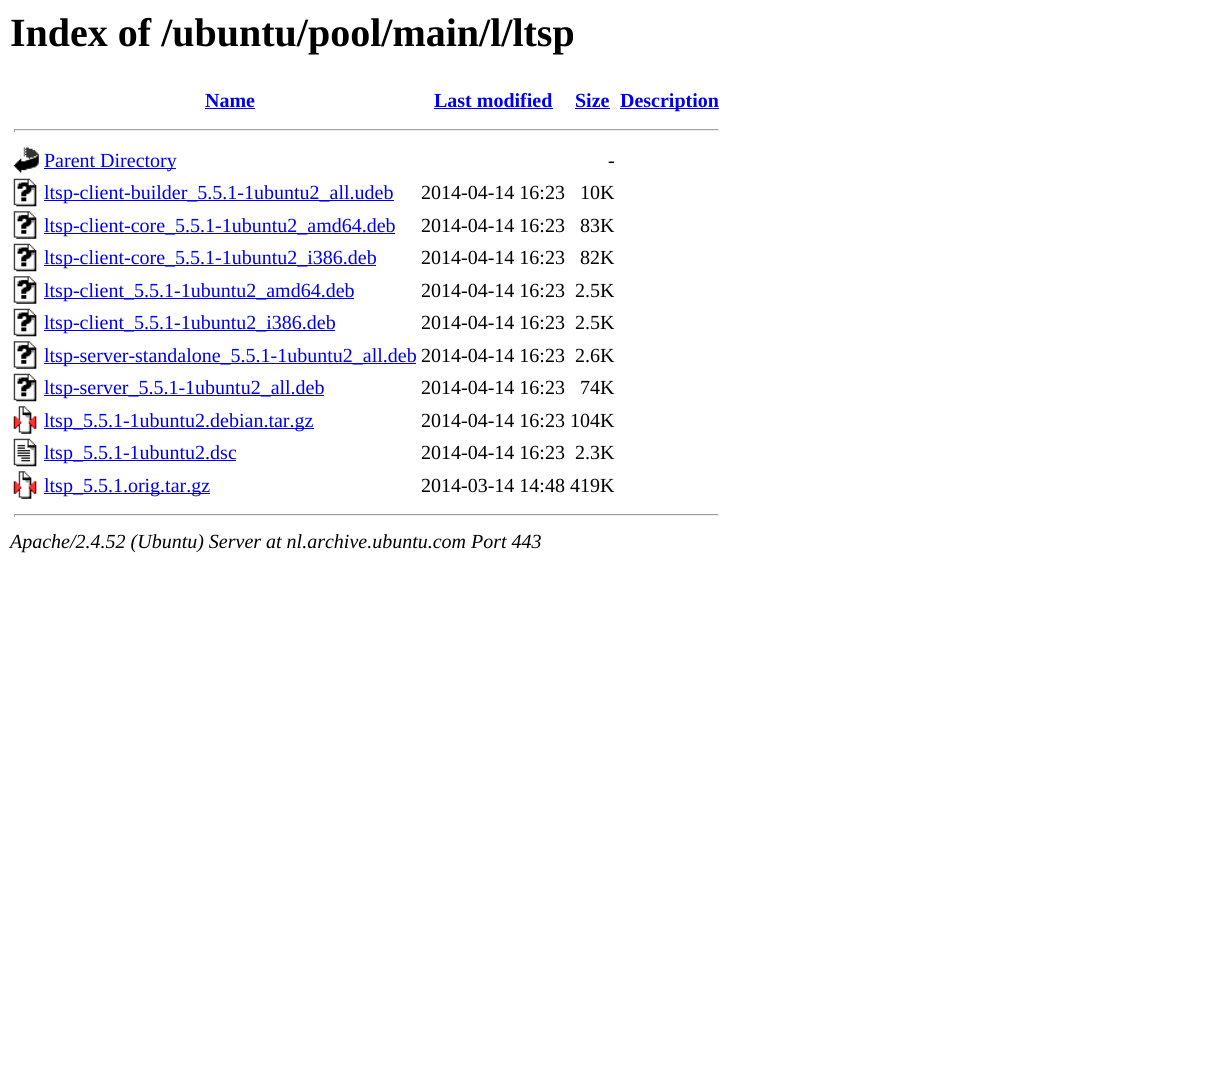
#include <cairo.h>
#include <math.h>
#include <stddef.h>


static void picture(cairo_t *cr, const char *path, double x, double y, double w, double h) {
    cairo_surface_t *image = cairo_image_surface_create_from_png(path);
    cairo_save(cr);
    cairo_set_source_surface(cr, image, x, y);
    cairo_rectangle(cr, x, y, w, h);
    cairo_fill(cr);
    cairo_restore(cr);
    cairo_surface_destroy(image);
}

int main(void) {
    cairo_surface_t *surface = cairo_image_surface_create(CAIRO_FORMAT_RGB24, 1225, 1089);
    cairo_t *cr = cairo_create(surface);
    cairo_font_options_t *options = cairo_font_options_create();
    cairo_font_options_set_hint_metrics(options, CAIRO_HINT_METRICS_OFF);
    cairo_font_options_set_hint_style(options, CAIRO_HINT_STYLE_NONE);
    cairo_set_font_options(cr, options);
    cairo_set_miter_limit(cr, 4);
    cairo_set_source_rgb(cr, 1, 1, 1);
    cairo_paint(cr);
    cairo_select_font_face(cr, "Liberation Serif", CAIRO_FONT_SLANT_NORMAL, CAIRO_FONT_WEIGHT_BOLD);
    cairo_set_font_size(cr, 40);
    cairo_set_source_rgb(cr, 0, 0, 0);
    cairo_move_to(cr, 10, 46);
    cairo_show_text(cr, "Index of /ubuntu/pool/main/l/ltsp");
    cairo_set_font_size(cr, 20);
    cairo_set_source_rgb(cr, 0, 0, 0.933);
    cairo_move_to(cr, 205, 107);
    cairo_show_text(cr, "Name");
    cairo_rectangle(cr, 205, 108, 50, 1);
    cairo_fill(cr);
    cairo_move_to(cr, 434, 107);
    cairo_show_text(cr, "Last modified");
    cairo_rectangle(cr, 434, 108, 119, 1);
    cairo_fill(cr);
    cairo_move_to(cr, 575, 107);
    cairo_show_text(cr, "Size");
    cairo_rectangle(cr, 575, 108, 35, 1);
    cairo_fill(cr);
    cairo_rectangle(cr, 620, 108, 99, 1);
    cairo_fill(cr);
    cairo_move_to(cr, 620, 107);
    cairo_show_text(cr, "Description");
    cairo_set_source_rgb(cr, 0.624, 0.624, 0.624);
    cairo_rectangle(cr, 14, 129, 705, 1);
    cairo_fill(cr);
    cairo_set_source_rgb(cr, 0.933, 0.933, 0.933);
    cairo_rectangle(cr, 718, 129, 1, 3);
    cairo_fill(cr);
    cairo_rectangle(cr, 14, 130, 705, 1);
    cairo_fill(cr);
    cairo_set_source_rgb(cr, 0.624, 0.624, 0.624);
    cairo_rectangle(cr, 14, 129, 1, 3);
    cairo_fill(cr);
    picture(cr, "img1.png", 13, 147, 26, 26);
    cairo_set_source_rgb(cr, 0, 0, 0.933);
    cairo_rectangle(cr, 44, 168, 132, 1);
    cairo_fill(cr);
    cairo_select_font_face(cr, "Liberation Serif", CAIRO_FONT_SLANT_NORMAL, CAIRO_FONT_WEIGHT_NORMAL);
    cairo_move_to(cr, 44, 167);
    cairo_show_text(cr, "Parent Directory");
    cairo_set_source_rgb(cr, 0, 0, 0);
    cairo_move_to(cr, 608, 167);
    cairo_show_text(cr, "-");
    picture(cr, "img2.png", 13, 178, 24, 29);
    cairo_set_source_rgb(cr, 0, 0, 0.933);
    cairo_rectangle(cr, 44, 200, 350, 1);
    cairo_fill(cr);
    cairo_move_to(cr, 44, 199);
    cairo_show_text(cr, "ltsp-client-builder_5.5.1-1ubuntu2_all.udeb");
    cairo_set_source_rgb(cr, 0, 0, 0);
    cairo_move_to(cr, 421, 199);
    cairo_show_text(cr, "2014-04-14 16:23");
    cairo_move_to(cr, 580, 199);
    cairo_show_text(cr, "10K");
    picture(cr, "img3.png", 13, 211, 24, 28);
    cairo_set_source_rgb(cr, 0, 0, 0.933);
    cairo_rectangle(cr, 44, 233, 351, 1);
    cairo_fill(cr);
    cairo_move_to(cr, 44, 232);
    cairo_show_text(cr, "ltsp-client-core_5.5.1-1ubuntu2_amd64.deb");
    cairo_set_source_rgb(cr, 0, 0, 0);
    cairo_move_to(cr, 421, 232);
    cairo_show_text(cr, "2014-04-14 16:23");
    cairo_move_to(cr, 580, 232);
    cairo_show_text(cr, "83K");
    picture(cr, "img2.png", 13, 243, 24, 29);
    cairo_set_source_rgb(cr, 0, 0, 0.933);
    cairo_rectangle(cr, 44, 265, 332, 1);
    cairo_fill(cr);
    cairo_move_to(cr, 44, 264);
    cairo_show_text(cr, "ltsp-client-core_5.5.1-1ubuntu2_i386.deb");
    cairo_set_source_rgb(cr, 0, 0, 0);
    cairo_move_to(cr, 421, 264);
    cairo_show_text(cr, "2014-04-14 16:23");
    cairo_move_to(cr, 580, 264);
    cairo_show_text(cr, "82K");
    picture(cr, "img4.png", 13, 276, 24, 28);
    cairo_set_source_rgb(cr, 0, 0, 0.933);
    cairo_rectangle(cr, 44, 298, 310, 1);
    cairo_fill(cr);
    cairo_move_to(cr, 44, 297);
    cairo_show_text(cr, "ltsp-client_5.5.1-1ubuntu2_amd64.deb");
    cairo_set_source_rgb(cr, 0, 0, 0);
    cairo_move_to(cr, 421, 297);
    cairo_show_text(cr, "2014-04-14 16:23");
    cairo_move_to(cr, 575, 297);
    cairo_show_text(cr, "2.5K");
    picture(cr, "img2.png", 13, 308, 24, 29);
    cairo_set_source_rgb(cr, 0, 0, 0.933);
    cairo_rectangle(cr, 44, 330, 291, 1);
    cairo_fill(cr);
    cairo_move_to(cr, 44, 329);
    cairo_show_text(cr, "ltsp-client_5.5.1-1ubuntu2_i386.deb");
    cairo_set_source_rgb(cr, 0, 0, 0);
    cairo_move_to(cr, 421, 329);
    cairo_show_text(cr, "2014-04-14 16:23");
    cairo_move_to(cr, 575, 329);
    cairo_show_text(cr, "2.5K");
    picture(cr, "img3.png", 13, 341, 24, 28);
    cairo_set_source_rgb(cr, 0, 0, 0.933);
    cairo_rectangle(cr, 44, 363, 372, 1);
    cairo_fill(cr);
    cairo_move_to(cr, 44, 362);
    cairo_show_text(cr, "ltsp-server-standalone_5.5.1-1ubuntu2_all.deb");
    cairo_set_source_rgb(cr, 0, 0, 0);
    cairo_move_to(cr, 421, 362);
    cairo_show_text(cr, "2014-04-14 16:23");
    cairo_move_to(cr, 575, 362);
    cairo_show_text(cr, "2.6K");
    picture(cr, "img2.png", 13, 373, 24, 29);
    cairo_set_source_rgb(cr, 0, 0, 0.933);
    cairo_rectangle(cr, 44, 395, 280, 1);
    cairo_fill(cr);
    cairo_move_to(cr, 44, 394);
    cairo_show_text(cr, "ltsp-server_5.5.1-1ubuntu2_all.deb");
    cairo_set_source_rgb(cr, 0, 0, 0);
    cairo_move_to(cr, 421, 394);
    cairo_show_text(cr, "2014-04-14 16:23");
    cairo_move_to(cr, 580, 394);
    cairo_show_text(cr, "74K");
    picture(cr, "img5.png", 13, 406, 24, 28);
    cairo_set_source_rgb(cr, 0, 0, 0.933);
    cairo_rectangle(cr, 44, 428, 270, 1);
    cairo_fill(cr);
    cairo_move_to(cr, 44, 427);
    cairo_show_text(cr, "ltsp_5.5.1-1ubuntu2.debian.tar.gz");
    cairo_set_source_rgb(cr, 0, 0, 0);
    cairo_move_to(cr, 421, 427);
    cairo_show_text(cr, "2014-04-14 16:23 104K");
    picture(cr, "img6.png", 13, 438, 24, 29);
    cairo_set_source_rgb(cr, 0, 0, 0.933);
    cairo_rectangle(cr, 44, 460, 192, 1);
    cairo_fill(cr);
    cairo_move_to(cr, 44, 459);
    cairo_show_text(cr, "ltsp_5.5.1-1ubuntu2.dsc");
    cairo_set_source_rgb(cr, 0, 0, 0);
    cairo_move_to(cr, 421, 459);
    cairo_show_text(cr, "2014-04-14 16:23");
    cairo_move_to(cr, 575, 459);
    cairo_show_text(cr, "2.3K");
    picture(cr, "img5.png", 13, 471, 24, 28);
    cairo_set_source_rgb(cr, 0, 0, 0.933);
    cairo_rectangle(cr, 44, 493, 166, 1);
    cairo_fill(cr);
    cairo_move_to(cr, 44, 492);
    cairo_show_text(cr, "ltsp_5.5.1.orig.tar.gz");
    cairo_set_source_rgb(cr, 0, 0, 0);
    cairo_move_to(cr, 421, 492);
    cairo_show_text(cr, "2014-03-14 14:48 419K");
    cairo_set_source_rgb(cr, 0.624, 0.624, 0.624);
    cairo_rectangle(cr, 14, 514, 705, 1);
    cairo_fill(cr);
    cairo_set_source_rgb(cr, 0.933, 0.933, 0.933);
    cairo_rectangle(cr, 718, 514, 1, 3);
    cairo_fill(cr);
    cairo_rectangle(cr, 14, 515, 705, 1);
    cairo_fill(cr);
    cairo_set_source_rgb(cr, 0.624, 0.624, 0.624);
    cairo_rectangle(cr, 14, 514, 1, 3);
    cairo_fill(cr);
    cairo_select_font_face(cr, "Liberation Serif", CAIRO_FONT_SLANT_ITALIC, CAIRO_FONT_WEIGHT_NORMAL);
    cairo_set_source_rgb(cr, 0, 0, 0);
    cairo_move_to(cr, 10, 548);
    cairo_show_text(cr, "Apache/2.4.52 (Ubuntu) Server at nl.archive.ubuntu.com Port 443");
    cairo_surface_write_to_png(surface, "page.png");
    cairo_font_options_destroy(options);
    cairo_destroy(cr);
    cairo_surface_destroy(surface);
    return 0;
}
